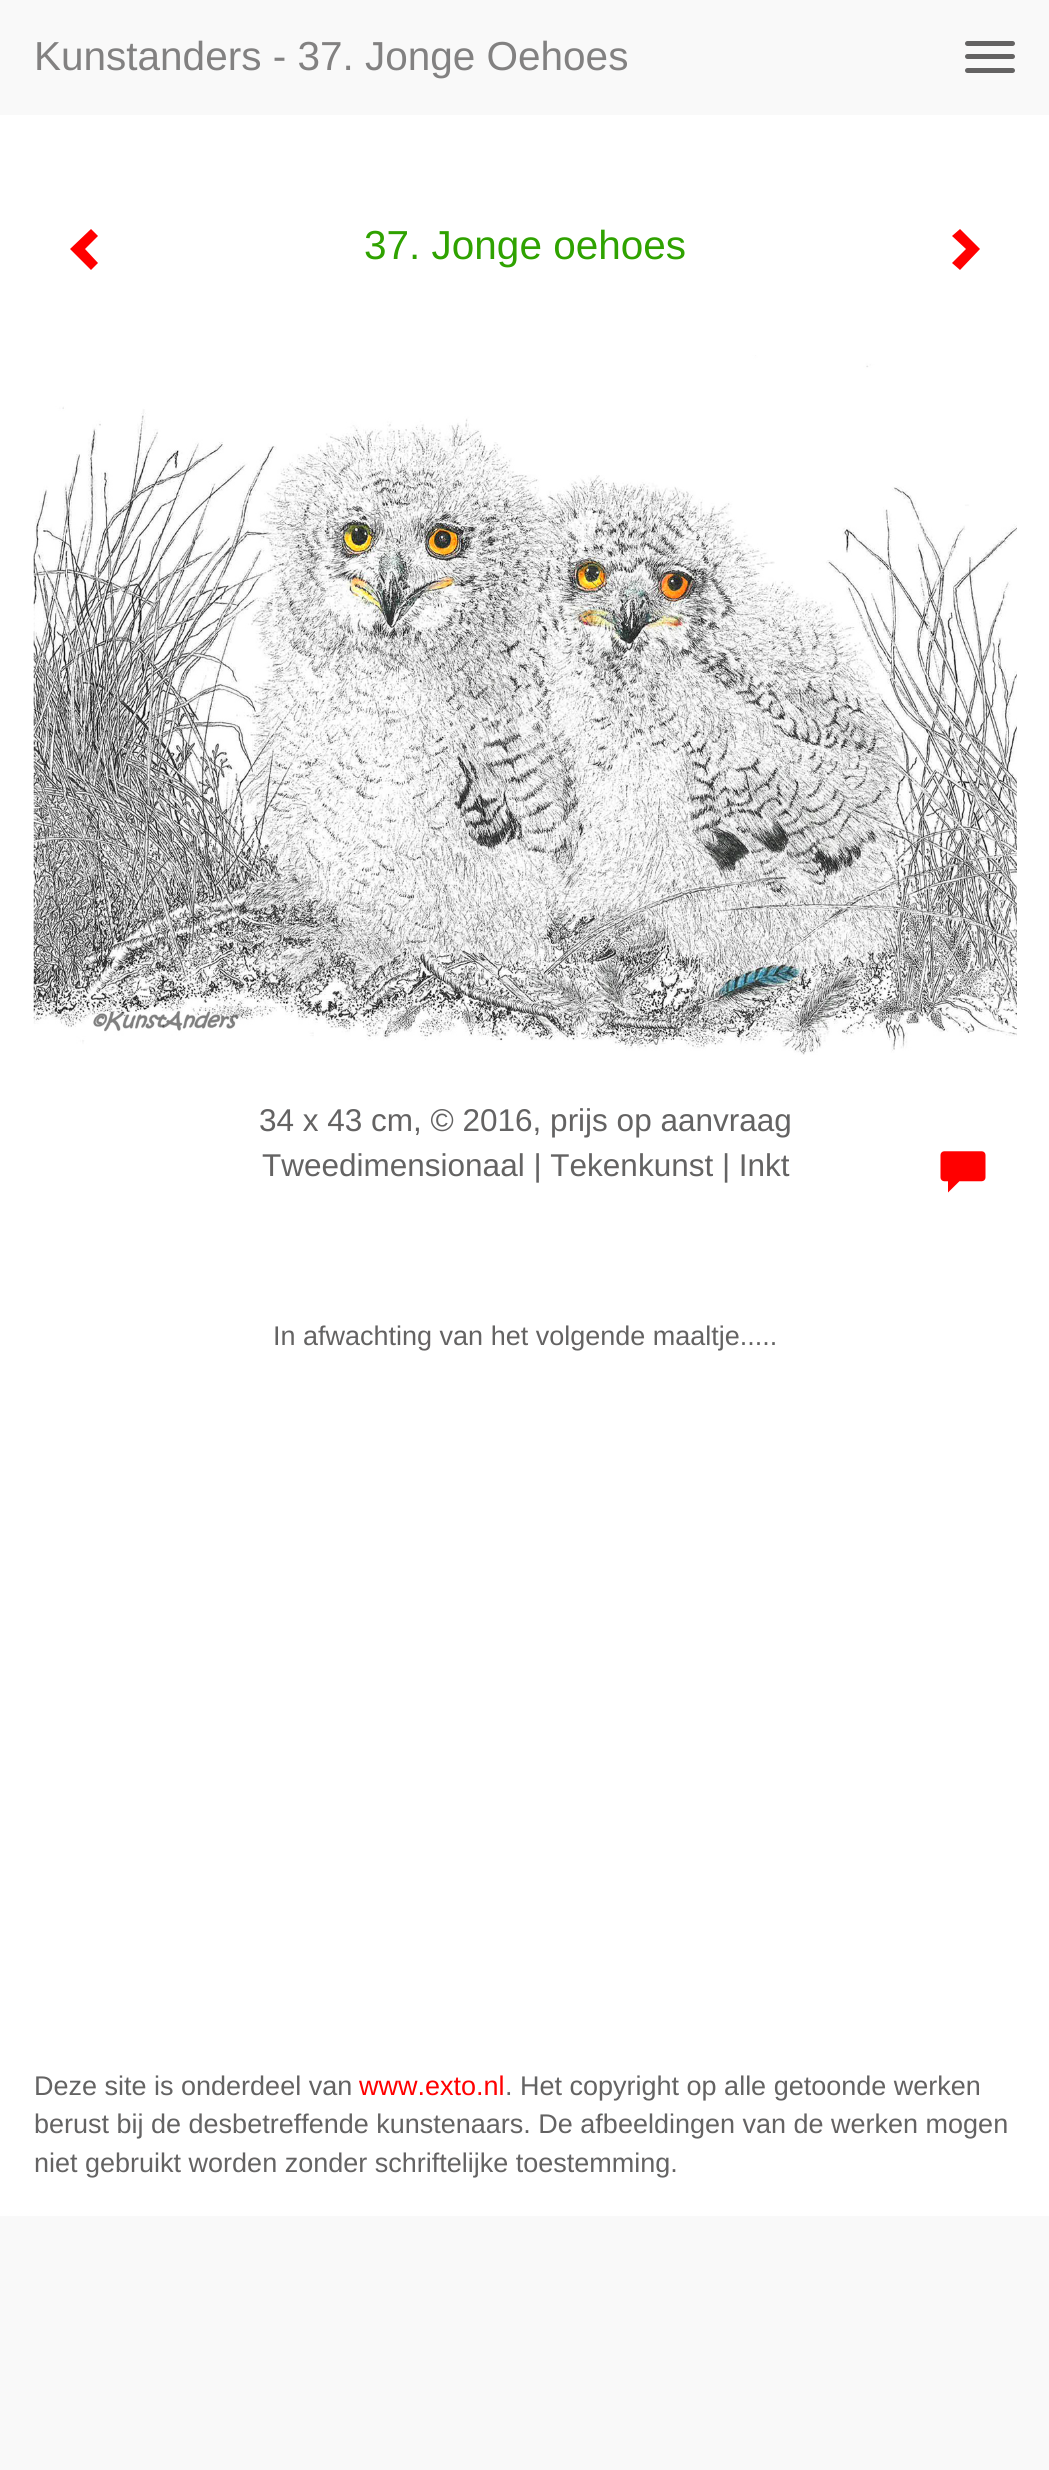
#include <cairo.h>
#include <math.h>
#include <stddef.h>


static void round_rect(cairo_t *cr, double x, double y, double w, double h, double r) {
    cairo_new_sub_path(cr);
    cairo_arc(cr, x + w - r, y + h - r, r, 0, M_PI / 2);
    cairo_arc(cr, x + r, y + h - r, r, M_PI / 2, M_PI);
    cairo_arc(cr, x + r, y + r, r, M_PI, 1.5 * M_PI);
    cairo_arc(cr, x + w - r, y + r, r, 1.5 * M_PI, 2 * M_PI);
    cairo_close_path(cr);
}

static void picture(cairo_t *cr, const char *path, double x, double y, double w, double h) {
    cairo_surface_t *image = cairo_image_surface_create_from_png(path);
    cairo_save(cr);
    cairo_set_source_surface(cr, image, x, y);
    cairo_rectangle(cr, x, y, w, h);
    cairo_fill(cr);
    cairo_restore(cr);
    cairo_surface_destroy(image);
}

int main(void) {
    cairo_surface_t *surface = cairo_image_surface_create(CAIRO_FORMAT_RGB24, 1049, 2470);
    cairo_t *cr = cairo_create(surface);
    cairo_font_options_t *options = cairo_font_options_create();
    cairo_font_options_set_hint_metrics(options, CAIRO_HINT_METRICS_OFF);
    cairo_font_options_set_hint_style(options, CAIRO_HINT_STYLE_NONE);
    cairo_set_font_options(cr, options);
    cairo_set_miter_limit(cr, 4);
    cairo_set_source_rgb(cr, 0.973, 0.973, 0.973);
    cairo_paint(cr);
    cairo_set_source_rgb(cr, 1, 1, 1);
    cairo_rectangle(cr, 0, 115, 1049, 2101);
    cairo_fill(cr);
    cairo_select_font_face(cr, "Liberation Sans", CAIRO_FONT_SLANT_NORMAL, CAIRO_FONT_WEIGHT_NORMAL);
    cairo_set_font_size(cr, 40.5);
    cairo_set_source_rgb(cr, 0.51, 0.506, 0.506);
    cairo_move_to(cr, 34, 70);
    cairo_show_text(cr, "Kunstanders - 37. Jonge Oehoes");
    cairo_set_source_rgb(cr, 0.392, 0.388, 0.388);
    round_rect(cr, 965, 41, 50, 5, 2.5);
    cairo_fill(cr);
    round_rect(cr, 965, 54, 50, 5, 2.5);
    cairo_fill(cr);
    round_rect(cr, 965, 68, 50, 5, 2.5);
    cairo_fill(cr);
    cairo_set_source_rgb(cr, 1, 0, 0);
    cairo_new_path(cr);
    cairo_move_to(cr, 98, 236);
    cairo_line_to(cr, 85, 249);
    cairo_line_to(cr, 98, 263);
    cairo_line_to(cr, 91, 270);
    cairo_line_to(cr, 70, 249);
    cairo_line_to(cr, 91, 229);
    cairo_close_path(cr);
    cairo_fill(cr);
    cairo_set_source_rgb(cr, 0.184, 0.635, 0);
    cairo_move_to(cr, 364, 259);
    cairo_show_text(cr, "37. Jonge oehoes");
    cairo_set_source_rgb(cr, 1, 0, 0);
    cairo_new_path(cr);
    cairo_move_to(cr, 980, 249);
    cairo_line_to(cr, 960, 270);
    cairo_line_to(cr, 952, 263);
    cairo_line_to(cr, 966, 249);
    cairo_line_to(cr, 952, 236);
    cairo_line_to(cr, 960, 229);
    cairo_close_path(cr);
    cairo_fill(cr);
    picture(cr, "img1.png", 33, 355, 984, 700);
    cairo_set_font_size(cr, 31.5);
    cairo_set_source_rgb(cr, 0.392, 0.388, 0.388);
    cairo_move_to(cr, 259, 1131);
    cairo_show_text(cr, "34 x 43 cm, © 2016, prijs op aanvraag");
    cairo_move_to(cr, 262, 1176);
    cairo_show_text(cr, "Tweedimensionaal | Tekenkunst | Inkt");
    picture(cr, "img2.png", 940, 1151, 46, 42);
    cairo_set_font_size(cr, 27);
    cairo_move_to(cr, 273, 1345);
    cairo_show_text(cr, "In afwachting van het volgende maaltje.....");
    cairo_move_to(cr, 34, 2095);
    cairo_show_text(cr, "Deze site is onderdeel van");
    cairo_set_source_rgb(cr, 1, 0, 0);
    cairo_move_to(cr, 359, 2095);
    cairo_show_text(cr, "www.exto.nl");
    cairo_set_source_rgb(cr, 0.392, 0.388, 0.388);
    cairo_move_to(cr, 505, 2095);
    cairo_show_text(cr, ". Het copyright op alle getoonde werken");
    cairo_move_to(cr, 34, 2133);
    cairo_show_text(cr, "berust bij de desbetreffende kunstenaars. De afbeeldingen van de werken mogen");
    cairo_move_to(cr, 34, 2172);
    cairo_show_text(cr, "niet gebruikt worden zonder schriftelijke toestemming.");
    cairo_surface_write_to_png(surface, "page.png");
    cairo_font_options_destroy(options);
    cairo_destroy(cr);
    cairo_surface_destroy(surface);
    return 0;
}
